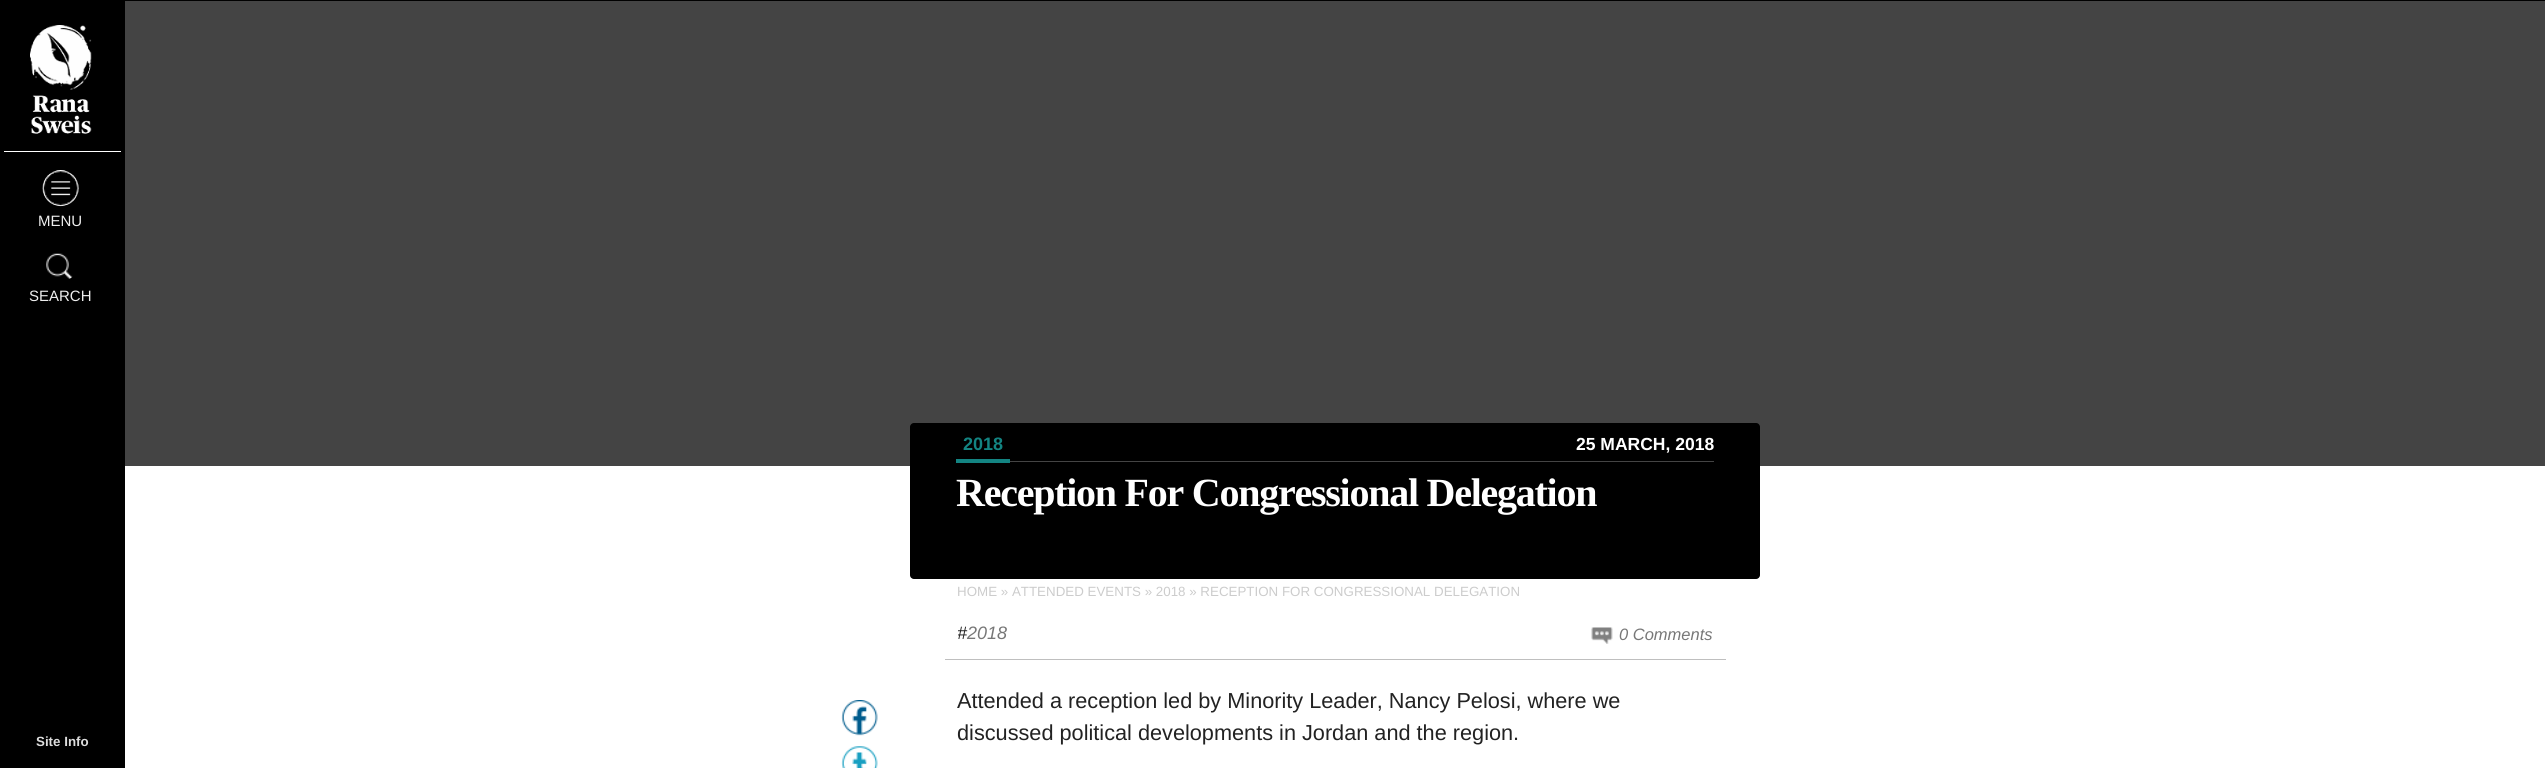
#include <cairo.h>
#include <math.h>
#include <stddef.h>


static void spaced_text(cairo_t *cr, double x, double y, const char *s, double letter, double word) {
    cairo_move_to(cr, x, y);
    while (*s) {
        char ch[5] = {0};
        int n = 0;
        do ch[n++] = *s++; while ((*s & 0xC0) == 0x80);
        cairo_show_text(cr, ch);
        cairo_rel_move_to(cr, letter + word * (*ch == ' '), 0);
    }
}

static void round_rect(cairo_t *cr, double x, double y, double w, double h, double r) {
    cairo_new_sub_path(cr);
    cairo_arc(cr, x + w - r, y + h - r, r, 0, M_PI / 2);
    cairo_arc(cr, x + r, y + h - r, r, M_PI / 2, M_PI);
    cairo_arc(cr, x + r, y + r, r, M_PI, 1.5 * M_PI);
    cairo_arc(cr, x + w - r, y + r, r, 1.5 * M_PI, 2 * M_PI);
    cairo_close_path(cr);
}

static void picture(cairo_t *cr, const char *path, double x, double y, double w, double h) {
    cairo_surface_t *image = cairo_image_surface_create_from_png(path);
    cairo_save(cr);
    cairo_set_source_surface(cr, image, x, y);
    cairo_rectangle(cr, x, y, w, h);
    cairo_fill(cr);
    cairo_restore(cr);
    cairo_surface_destroy(image);
}

int main(void) {
    cairo_surface_t *surface = cairo_image_surface_create(CAIRO_FORMAT_RGB24, 2545, 768);
    cairo_t *cr = cairo_create(surface);
    cairo_font_options_t *options = cairo_font_options_create();
    cairo_font_options_set_hint_metrics(options, CAIRO_HINT_METRICS_OFF);
    cairo_font_options_set_hint_style(options, CAIRO_HINT_STYLE_NONE);
    cairo_set_font_options(cr, options);
    cairo_set_miter_limit(cr, 4);
    cairo_set_source_rgb(cr, 0, 0, 0);
    cairo_paint(cr);
    cairo_set_source_rgb(cr, 1, 1, 1);
    cairo_rectangle(cr, 4, 151, 117, 1);
    cairo_fill(cr);
    picture(cr, "img1.png", 30, 25, 62, 109);
    picture(cr, "img2.png", 42, 170, 37, 37);
    cairo_select_font_face(cr, "Liberation Sans", CAIRO_FONT_SLANT_NORMAL, CAIRO_FONT_WEIGHT_NORMAL);
    cairo_set_font_size(cr, 15);
    cairo_set_source_rgb(cr, 0.933, 0.933, 0.933);
    cairo_move_to(cr, 38, 226);
    cairo_show_text(cr, "MENU");
    picture(cr, "img3.png", 46, 253, 27, 26);
    cairo_move_to(cr, 29, 301);
    cairo_show_text(cr, "SEARCH");
    cairo_select_font_face(cr, "Liberation Sans", CAIRO_FONT_SLANT_NORMAL, CAIRO_FONT_WEIGHT_BOLD);
    cairo_set_font_size(cr, 13.35);
    cairo_set_source_rgb(cr, 0.867, 0.867, 0.867);
    cairo_move_to(cr, 36, 746);
    cairo_show_text(cr, "Site Info");
    cairo_set_source_rgb(cr, 1, 1, 1);
    cairo_rectangle(cr, 125, 466, 2420, 302);
    cairo_fill(cr);
    cairo_set_source_rgb(cr, 0.267, 0.267, 0.267);
    cairo_rectangle(cr, 125, 1, 2420, 465);
    cairo_fill(cr);
    picture(cr, "img4.png", 841, 700, 37, 36);
    picture(cr, "img5.png", 841, 746, 37, 22);
    cairo_set_source_rgb(cr, 0, 0, 0);
    round_rect(cr, 910, 423, 850, 156, 4);
    cairo_fill(cr);
    cairo_set_source_rgb(cr, 0.267, 0.267, 0.267);
    cairo_rectangle(cr, 1010, 461, 704, 1);
    cairo_fill(cr);
    cairo_set_source_rgb(cr, 0.078, 0.518, 0.51);
    cairo_rectangle(cr, 956, 459, 54, 4);
    cairo_fill(cr);
    cairo_set_font_size(cr, 18);
    cairo_move_to(cr, 963, 450);
    cairo_show_text(cr, "2018");
    cairo_set_font_size(cr, 17.5);
    cairo_set_source_rgb(cr, 1, 1, 1);
    cairo_move_to(cr, 1576, 450);
    cairo_show_text(cr, "25 MARCH, 2018");
    cairo_select_font_face(cr, "Liberation Serif", CAIRO_FONT_SLANT_NORMAL, CAIRO_FONT_WEIGHT_BOLD);
    cairo_set_font_size(cr, 40);
    spaced_text(cr, 956, 506, "Reception For Congressional Delegation", -1.25, 0);
    cairo_set_source_rgb(cr, 0.749, 0.749, 0.749);
    cairo_rectangle(cr, 945, 659, 781, 1);
    cairo_fill(cr);
    cairo_select_font_face(cr, "Liberation Sans", CAIRO_FONT_SLANT_NORMAL, CAIRO_FONT_WEIGHT_NORMAL);
    cairo_set_font_size(cr, 13.35);
    cairo_set_source_rgb(cr, 0.8, 0.8, 0.8);
    cairo_move_to(cr, 957, 596);
    cairo_show_text(cr, "HOME » ATTENDED EVENTS » 2018 » RECEPTION FOR CONGRESSIONAL DELEGATION");
    cairo_save(cr);
    cairo_rectangle(cr, 958, 619, 631, 29);
    cairo_clip(cr);
    cairo_select_font_face(cr, "Liberation Sans", CAIRO_FONT_SLANT_ITALIC, CAIRO_FONT_WEIGHT_NORMAL);
    cairo_set_font_size(cr, 18);
    cairo_set_source_rgb(cr, 0.133, 0.133, 0.133);
    cairo_move_to(cr, 957, 639);
    cairo_show_text(cr, "#");
    cairo_restore(cr);
    cairo_select_font_face(cr, "Liberation Sans", CAIRO_FONT_SLANT_ITALIC, CAIRO_FONT_WEIGHT_NORMAL);
    cairo_set_font_size(cr, 18);
    cairo_set_source_rgb(cr, 0.467, 0.467, 0.467);
    cairo_move_to(cr, 967, 639);
    cairo_show_text(cr, "2018");
    picture(cr, "img6.png", 1591, 627, 22, 17);
    cairo_set_font_size(cr, 16.5);
    cairo_move_to(cr, 1619, 640);
    cairo_show_text(cr, "0 Comments");
    cairo_select_font_face(cr, "Liberation Sans", CAIRO_FONT_SLANT_NORMAL, CAIRO_FONT_WEIGHT_NORMAL);
    cairo_set_font_size(cr, 21.7);
    cairo_set_source_rgb(cr, 0.133, 0.133, 0.133);
    cairo_move_to(cr, 957, 708);
    cairo_show_text(cr, "Attended a reception led by Minority Leader, Nancy Pelosi, where we");
    cairo_move_to(cr, 957, 740);
    cairo_show_text(cr, "discussed political developments in Jordan and the region.");
    cairo_surface_write_to_png(surface, "page.png");
    cairo_font_options_destroy(options);
    cairo_destroy(cr);
    cairo_surface_destroy(surface);
    return 0;
}
